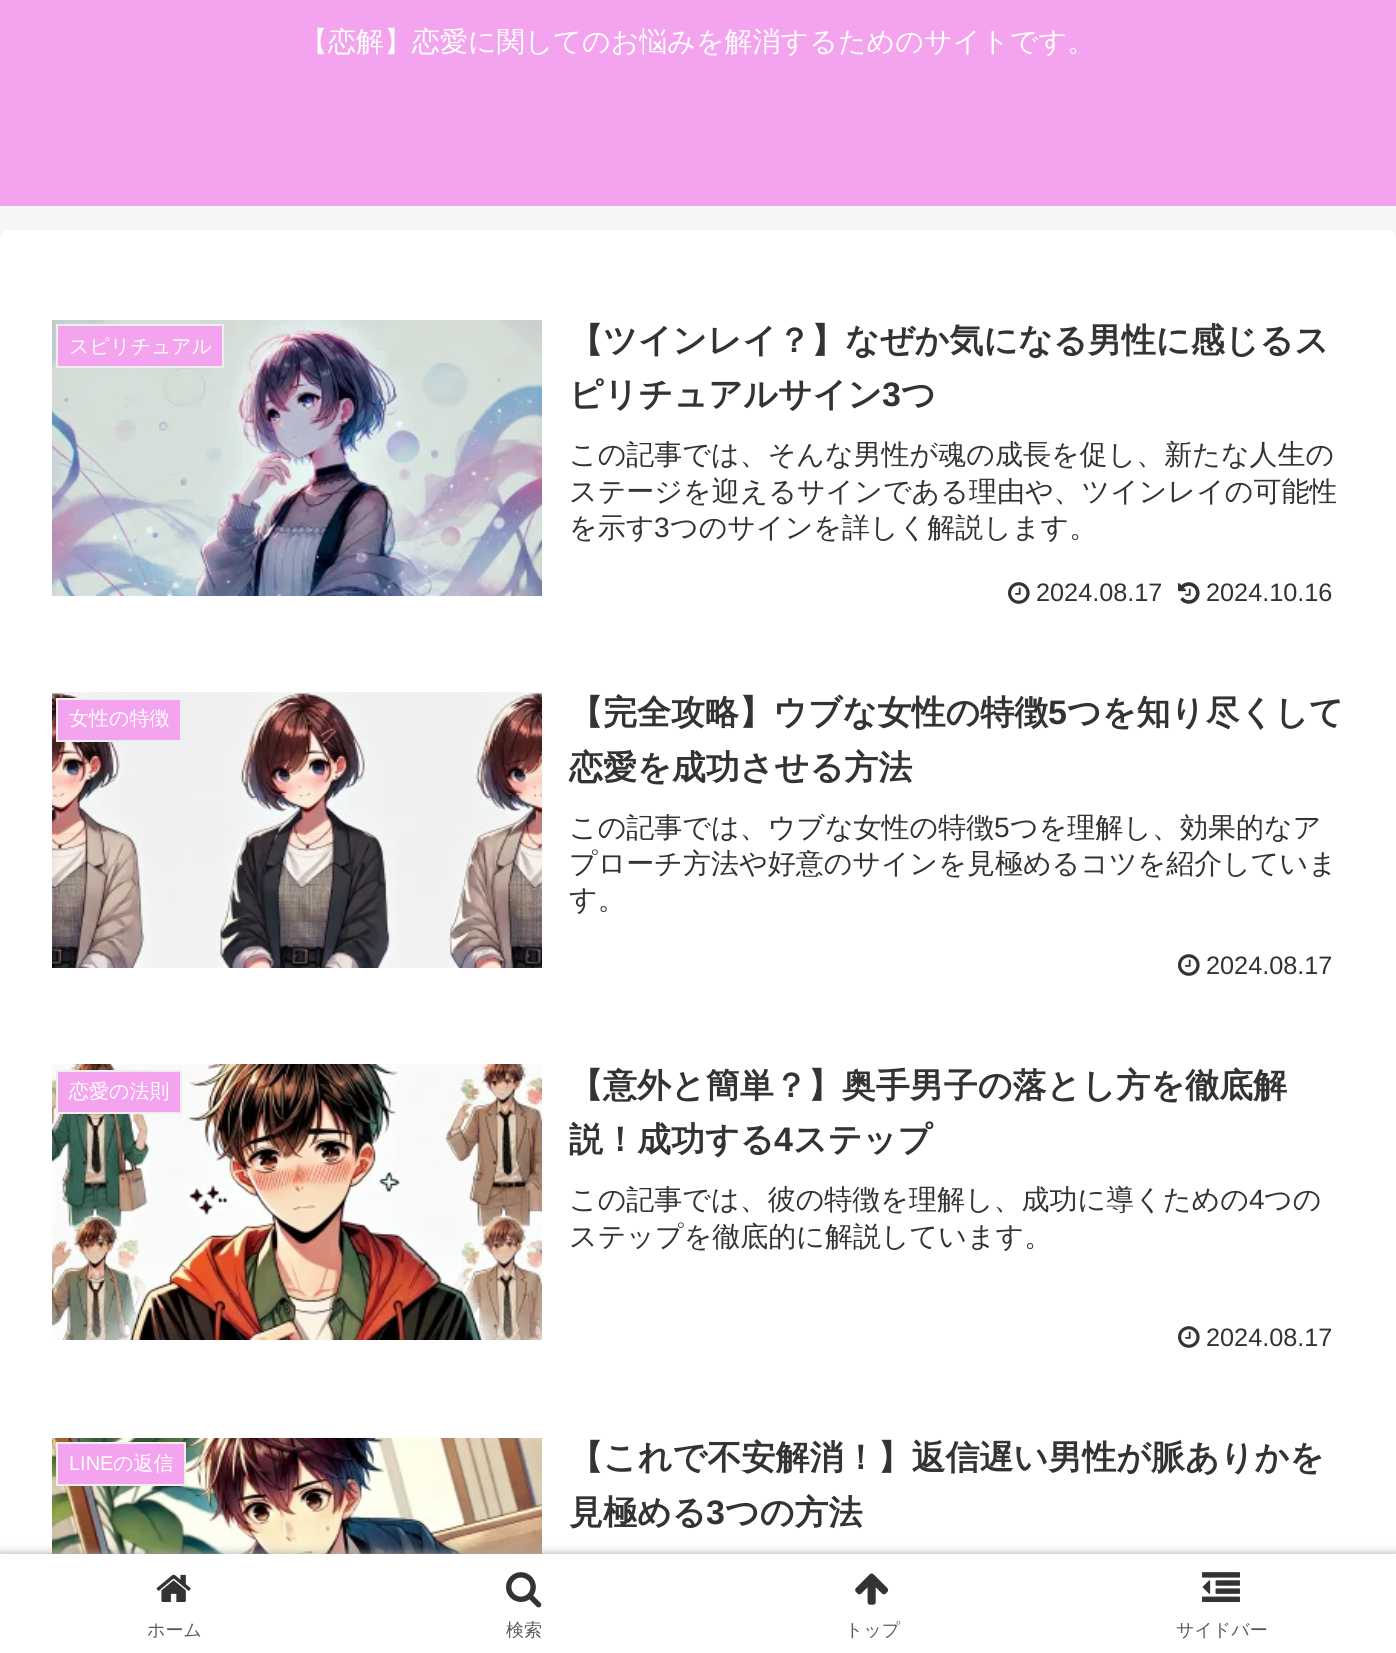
#include <cairo.h>
#include <math.h>
#include <stddef.h>


static void round_rect(cairo_t *cr, double x, double y, double w, double h, double r) {
    cairo_new_sub_path(cr);
    cairo_arc(cr, x + w - r, y + h - r, r, 0, M_PI / 2);
    cairo_arc(cr, x + r, y + h - r, r, M_PI / 2, M_PI);
    cairo_arc(cr, x + r, y + r, r, M_PI, 1.5 * M_PI);
    cairo_arc(cr, x + w - r, y + r, r, 1.5 * M_PI, 2 * M_PI);
    cairo_close_path(cr);
}

static void shadow(cairo_t *cr, double x, double y, double w, double h, double r, double blur, double alpha) {
    cairo_push_group_with_content(cr, CAIRO_CONTENT_ALPHA);
    cairo_set_operator(cr, CAIRO_OPERATOR_SOURCE);
    for (int i = 15; i >= -15 && fmin(w, h) + blur * i / 3 > 0; i -= 2) {
        double e = blur * i / 6;
        cairo_set_source_rgba(cr, 0, 0, 0, alpha * erfc((i - 1) / 8.5) / 2);
        round_rect(cr, x - e, y - e, w + 2 * e, h + 2 * e, fmax(0, fmin(r + e + blur * .6, fmin(w, h) / 2 + e)));
        cairo_fill(cr);
    }
    cairo_pattern_t *soft = cairo_pop_group(cr);
    cairo_mask(cr, soft);
    cairo_pattern_destroy(soft);
}

static void picture(cairo_t *cr, const char *path, double x, double y, double w, double h) {
    cairo_surface_t *image = cairo_image_surface_create_from_png(path);
    cairo_save(cr);
    cairo_set_source_surface(cr, image, x, y);
    cairo_rectangle(cr, x, y, w, h);
    cairo_fill(cr);
    cairo_restore(cr);
    cairo_surface_destroy(image);
}

int main(void) {
    cairo_surface_t *surface = cairo_image_surface_create(CAIRO_FORMAT_RGB24, 1396, 1653);
    cairo_t *cr = cairo_create(surface);
    cairo_font_options_t *options = cairo_font_options_create();
    cairo_font_options_set_hint_metrics(options, CAIRO_HINT_METRICS_OFF);
    cairo_font_options_set_hint_style(options, CAIRO_HINT_STYLE_NONE);
    cairo_set_font_options(cr, options);
    cairo_set_miter_limit(cr, 4);
    cairo_set_source_rgb(cr, 0.957, 0.961, 0.969);
    cairo_paint(cr);
    cairo_set_source_rgb(cr, 0.957, 0.643, 0.937);
    cairo_rectangle(cr, 0, 0, 1396, 206);
    cairo_fill(cr);
    cairo_select_font_face(cr, "WenQuanYi Zen Hei Medium", CAIRO_FONT_SLANT_NORMAL, CAIRO_FONT_WEIGHT_NORMAL);
    cairo_set_font_size(cr, 28);
    cairo_set_source_rgb(cr, 1, 1, 1);
    cairo_move_to(cr, 300, 51);
    cairo_show_text(cr, "【恋解】恋愛に関してのお悩みを解消するためのサイトです。");
    round_rect(cr, 0, 230, 1396, 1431, 8);
    cairo_fill(cr);
    picture(cr, "img1.png", 52, 320, 490, 276);
    cairo_set_source_rgb(cr, 0.957, 0.643, 0.937);
    cairo_rectangle(cr, 57, 325, 166, 42);
    cairo_fill_preserve(cr);
    cairo_set_source_rgb(cr, 0.933, 0.933, 0.933);
    cairo_stroke(cr);
    cairo_set_font_size(cr, 20);
    cairo_set_source_rgb(cr, 1, 1, 1);
    cairo_move_to(cr, 69, 353);
    cairo_show_text(cr, "スピリチュアル");
    cairo_select_font_face(cr, "WenQuanYi Zen Hei", CAIRO_FONT_SLANT_NORMAL, CAIRO_FONT_WEIGHT_BOLD);
    cairo_set_font_size(cr, 34);
    cairo_set_source_rgb(cr, 0.2, 0.2, 0.2);
    cairo_move_to(cr, 569, 352);
    cairo_show_text(cr, "【ツインレイ？】なぜか気になる男性に感じるス");
    cairo_move_to(cr, 569, 406);
    cairo_show_text(cr, "ピリチュアルサイン");
    cairo_select_font_face(cr, "Liberation Sans", CAIRO_FONT_SLANT_NORMAL, CAIRO_FONT_WEIGHT_BOLD);
    cairo_move_to(cr, 882, 406);
    cairo_show_text(cr, "3");
    cairo_select_font_face(cr, "WenQuanYi Zen Hei", CAIRO_FONT_SLANT_NORMAL, CAIRO_FONT_WEIGHT_BOLD);
    cairo_move_to(cr, 901, 406);
    cairo_show_text(cr, "つ");
    cairo_select_font_face(cr, "WenQuanYi Zen Hei Medium", CAIRO_FONT_SLANT_NORMAL, CAIRO_FONT_WEIGHT_NORMAL);
    cairo_set_font_size(cr, 28);
    cairo_move_to(cr, 569, 464);
    cairo_show_text(cr, "この記事では、そんな男性が魂の成長を促し、新たな人生の");
    cairo_move_to(cr, 569, 501);
    cairo_show_text(cr, "ステージを迎えるサインである理由や、ツインレイの可能性");
    cairo_move_to(cr, 569, 537);
    cairo_show_text(cr, "を示す");
    cairo_select_font_face(cr, "Liberation Sans", CAIRO_FONT_SLANT_NORMAL, CAIRO_FONT_WEIGHT_NORMAL);
    cairo_move_to(cr, 654, 537);
    cairo_show_text(cr, "3");
    cairo_select_font_face(cr, "WenQuanYi Zen Hei Medium", CAIRO_FONT_SLANT_NORMAL, CAIRO_FONT_WEIGHT_NORMAL);
    cairo_move_to(cr, 670, 537);
    cairo_show_text(cr, "つのサインを詳しく解説します。");
    picture(cr, "img2.png", 1008, 582, 22, 22);
    cairo_select_font_face(cr, "Liberation Sans", CAIRO_FONT_SLANT_NORMAL, CAIRO_FONT_WEIGHT_NORMAL);
    cairo_set_font_size(cr, 25.25);
    cairo_move_to(cr, 1036, 601);
    cairo_show_text(cr, "2024.08.17");
    picture(cr, "img3.png", 1178, 582, 22, 22);
    cairo_move_to(cr, 1206, 601);
    cairo_show_text(cr, "2024.10.16");
    picture(cr, "img4.png", 52, 692, 490, 276);
    cairo_set_source_rgb(cr, 0.957, 0.643, 0.937);
    cairo_rectangle(cr, 57, 699, 124, 42);
    cairo_fill_preserve(cr);
    cairo_set_source_rgb(cr, 0.933, 0.933, 0.933);
    cairo_stroke(cr);
    cairo_select_font_face(cr, "WenQuanYi Zen Hei Medium", CAIRO_FONT_SLANT_NORMAL, CAIRO_FONT_WEIGHT_NORMAL);
    cairo_set_font_size(cr, 20);
    cairo_set_source_rgb(cr, 1, 1, 1);
    cairo_move_to(cr, 69, 725);
    cairo_show_text(cr, "女性の特徴");
    cairo_select_font_face(cr, "WenQuanYi Zen Hei", CAIRO_FONT_SLANT_NORMAL, CAIRO_FONT_WEIGHT_BOLD);
    cairo_set_font_size(cr, 34);
    cairo_set_source_rgb(cr, 0.2, 0.2, 0.2);
    cairo_move_to(cr, 569, 724);
    cairo_show_text(cr, "【完全攻略】ウブな女性の特徴");
    cairo_select_font_face(cr, "Liberation Sans", CAIRO_FONT_SLANT_NORMAL, CAIRO_FONT_WEIGHT_BOLD);
    cairo_move_to(cr, 1048, 724);
    cairo_show_text(cr, "5");
    cairo_select_font_face(cr, "WenQuanYi Zen Hei", CAIRO_FONT_SLANT_NORMAL, CAIRO_FONT_WEIGHT_BOLD);
    cairo_move_to(cr, 1067, 724);
    cairo_show_text(cr, "つを知り尽くして");
    cairo_move_to(cr, 569, 779);
    cairo_show_text(cr, "恋愛を成功させる方法");
    cairo_select_font_face(cr, "WenQuanYi Zen Hei Medium", CAIRO_FONT_SLANT_NORMAL, CAIRO_FONT_WEIGHT_NORMAL);
    cairo_set_font_size(cr, 28);
    cairo_move_to(cr, 569, 837);
    cairo_show_text(cr, "この記事では、ウブな女性の特徴");
    cairo_select_font_face(cr, "Liberation Sans", CAIRO_FONT_SLANT_NORMAL, CAIRO_FONT_WEIGHT_NORMAL);
    cairo_move_to(cr, 994, 837);
    cairo_show_text(cr, "5");
    cairo_select_font_face(cr, "WenQuanYi Zen Hei Medium", CAIRO_FONT_SLANT_NORMAL, CAIRO_FONT_WEIGHT_NORMAL);
    cairo_move_to(cr, 1010, 837);
    cairo_show_text(cr, "つを理解し、効果的なア");
    cairo_move_to(cr, 569, 873);
    cairo_show_text(cr, "プローチ方法や好意のサインを見極めるコツを紹介していま");
    cairo_move_to(cr, 569, 909);
    cairo_show_text(cr, "す。");
    picture(cr, "img2.png", 1178, 954, 22, 22);
    cairo_select_font_face(cr, "Liberation Sans", CAIRO_FONT_SLANT_NORMAL, CAIRO_FONT_WEIGHT_NORMAL);
    cairo_set_font_size(cr, 25.25);
    cairo_move_to(cr, 1206, 974);
    cairo_show_text(cr, "2024.08.17");
    picture(cr, "img5.png", 52, 1064, 490, 276);
    cairo_set_source_rgb(cr, 0.957, 0.643, 0.937);
    cairo_rectangle(cr, 57, 1071, 124, 42);
    cairo_fill_preserve(cr);
    cairo_set_source_rgb(cr, 0.933, 0.933, 0.933);
    cairo_stroke(cr);
    cairo_select_font_face(cr, "WenQuanYi Zen Hei Medium", CAIRO_FONT_SLANT_NORMAL, CAIRO_FONT_WEIGHT_NORMAL);
    cairo_set_font_size(cr, 20);
    cairo_set_source_rgb(cr, 1, 1, 1);
    cairo_move_to(cr, 69, 1098);
    cairo_show_text(cr, "恋愛の法則");
    cairo_select_font_face(cr, "WenQuanYi Zen Hei", CAIRO_FONT_SLANT_NORMAL, CAIRO_FONT_WEIGHT_BOLD);
    cairo_set_font_size(cr, 34);
    cairo_set_source_rgb(cr, 0.2, 0.2, 0.2);
    cairo_move_to(cr, 569, 1097);
    cairo_show_text(cr, "【意外と簡単？】奥手男子の落とし方を徹底解");
    cairo_move_to(cr, 569, 1151);
    cairo_show_text(cr, "説！成功する");
    cairo_select_font_face(cr, "Liberation Sans", CAIRO_FONT_SLANT_NORMAL, CAIRO_FONT_WEIGHT_BOLD);
    cairo_move_to(cr, 774, 1151);
    cairo_show_text(cr, "4");
    cairo_select_font_face(cr, "WenQuanYi Zen Hei", CAIRO_FONT_SLANT_NORMAL, CAIRO_FONT_WEIGHT_BOLD);
    cairo_move_to(cr, 793, 1151);
    cairo_show_text(cr, "ステップ");
    cairo_select_font_face(cr, "WenQuanYi Zen Hei Medium", CAIRO_FONT_SLANT_NORMAL, CAIRO_FONT_WEIGHT_NORMAL);
    cairo_set_font_size(cr, 28);
    cairo_move_to(cr, 569, 1209);
    cairo_show_text(cr, "この記事では、彼の特徴を理解し、成功に導くための");
    cairo_select_font_face(cr, "Liberation Sans", CAIRO_FONT_SLANT_NORMAL, CAIRO_FONT_WEIGHT_NORMAL);
    cairo_move_to(cr, 1249, 1209);
    cairo_show_text(cr, "4");
    cairo_select_font_face(cr, "WenQuanYi Zen Hei Medium", CAIRO_FONT_SLANT_NORMAL, CAIRO_FONT_WEIGHT_NORMAL);
    cairo_move_to(cr, 1264, 1209);
    cairo_show_text(cr, "つの");
    cairo_move_to(cr, 569, 1246);
    cairo_show_text(cr, "ステップを徹底的に解説しています。");
    picture(cr, "img2.png", 1178, 1326, 22, 22);
    cairo_select_font_face(cr, "Liberation Sans", CAIRO_FONT_SLANT_NORMAL, CAIRO_FONT_WEIGHT_NORMAL);
    cairo_set_font_size(cr, 25.25);
    cairo_move_to(cr, 1206, 1346);
    cairo_show_text(cr, "2024.08.17");
    picture(cr, "img6.png", 52, 1438, 490, 116);
    cairo_set_source_rgb(cr, 0.957, 0.643, 0.937);
    cairo_rectangle(cr, 57, 1443, 128, 42);
    cairo_fill_preserve(cr);
    cairo_set_source_rgb(cr, 0.933, 0.933, 0.933);
    cairo_stroke(cr);
    cairo_set_font_size(cr, 20);
    cairo_set_source_rgb(cr, 1, 1, 1);
    cairo_move_to(cr, 69, 1470);
    cairo_show_text(cr, "LINE");
    cairo_select_font_face(cr, "WenQuanYi Zen Hei Medium", CAIRO_FONT_SLANT_NORMAL, CAIRO_FONT_WEIGHT_NORMAL);
    cairo_move_to(cr, 113, 1470);
    cairo_show_text(cr, "の返信");
    cairo_select_font_face(cr, "WenQuanYi Zen Hei", CAIRO_FONT_SLANT_NORMAL, CAIRO_FONT_WEIGHT_BOLD);
    cairo_set_font_size(cr, 34);
    cairo_set_source_rgb(cr, 0.2, 0.2, 0.2);
    cairo_move_to(cr, 569, 1469);
    cairo_show_text(cr, "【これで不安解消！】返信遅い男性が脈ありかを");
    cairo_move_to(cr, 569, 1524);
    cairo_show_text(cr, "見極める");
    cairo_select_font_face(cr, "Liberation Sans", CAIRO_FONT_SLANT_NORMAL, CAIRO_FONT_WEIGHT_BOLD);
    cairo_move_to(cr, 706, 1524);
    cairo_show_text(cr, "3");
    cairo_select_font_face(cr, "WenQuanYi Zen Hei", CAIRO_FONT_SLANT_NORMAL, CAIRO_FONT_WEIGHT_BOLD);
    cairo_move_to(cr, 725, 1524);
    cairo_show_text(cr, "つの方法");
    cairo_set_source_rgb(cr, 0.663, 0.663, 0.663);
    shadow(cr, 0, 1554, 1396, 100, 0, 5, 1);
    cairo_set_source_rgb(cr, 1, 1, 1);
    cairo_rectangle(cr, 0, 1554, 1396, 99);
    cairo_fill(cr);
    picture(cr, "img7.png", 156, 1574, 35, 28);
    cairo_select_font_face(cr, "WenQuanYi Zen Hei Medium", CAIRO_FONT_SLANT_NORMAL, CAIRO_FONT_WEIGHT_NORMAL);
    cairo_set_font_size(cr, 18);
    cairo_set_source_rgb(cr, 0.361, 0.361, 0.361);
    cairo_move_to(cr, 147, 1636);
    cairo_show_text(cr, "ホーム");
    picture(cr, "img8.png", 506, 1572, 36, 36);
    cairo_move_to(cr, 506, 1636);
    cairo_show_text(cr, "検索");
    picture(cr, "img9.png", 855, 1573, 34, 32);
    cairo_move_to(cr, 845, 1636);
    cairo_show_text(cr, "トップ");
    picture(cr, "img10.png", 1202, 1572, 38, 30);
    cairo_move_to(cr, 1176, 1636);
    cairo_show_text(cr, "サイドバー");
    cairo_surface_write_to_png(surface, "page.png");
    cairo_font_options_destroy(options);
    cairo_destroy(cr);
    cairo_surface_destroy(surface);
    return 0;
}
